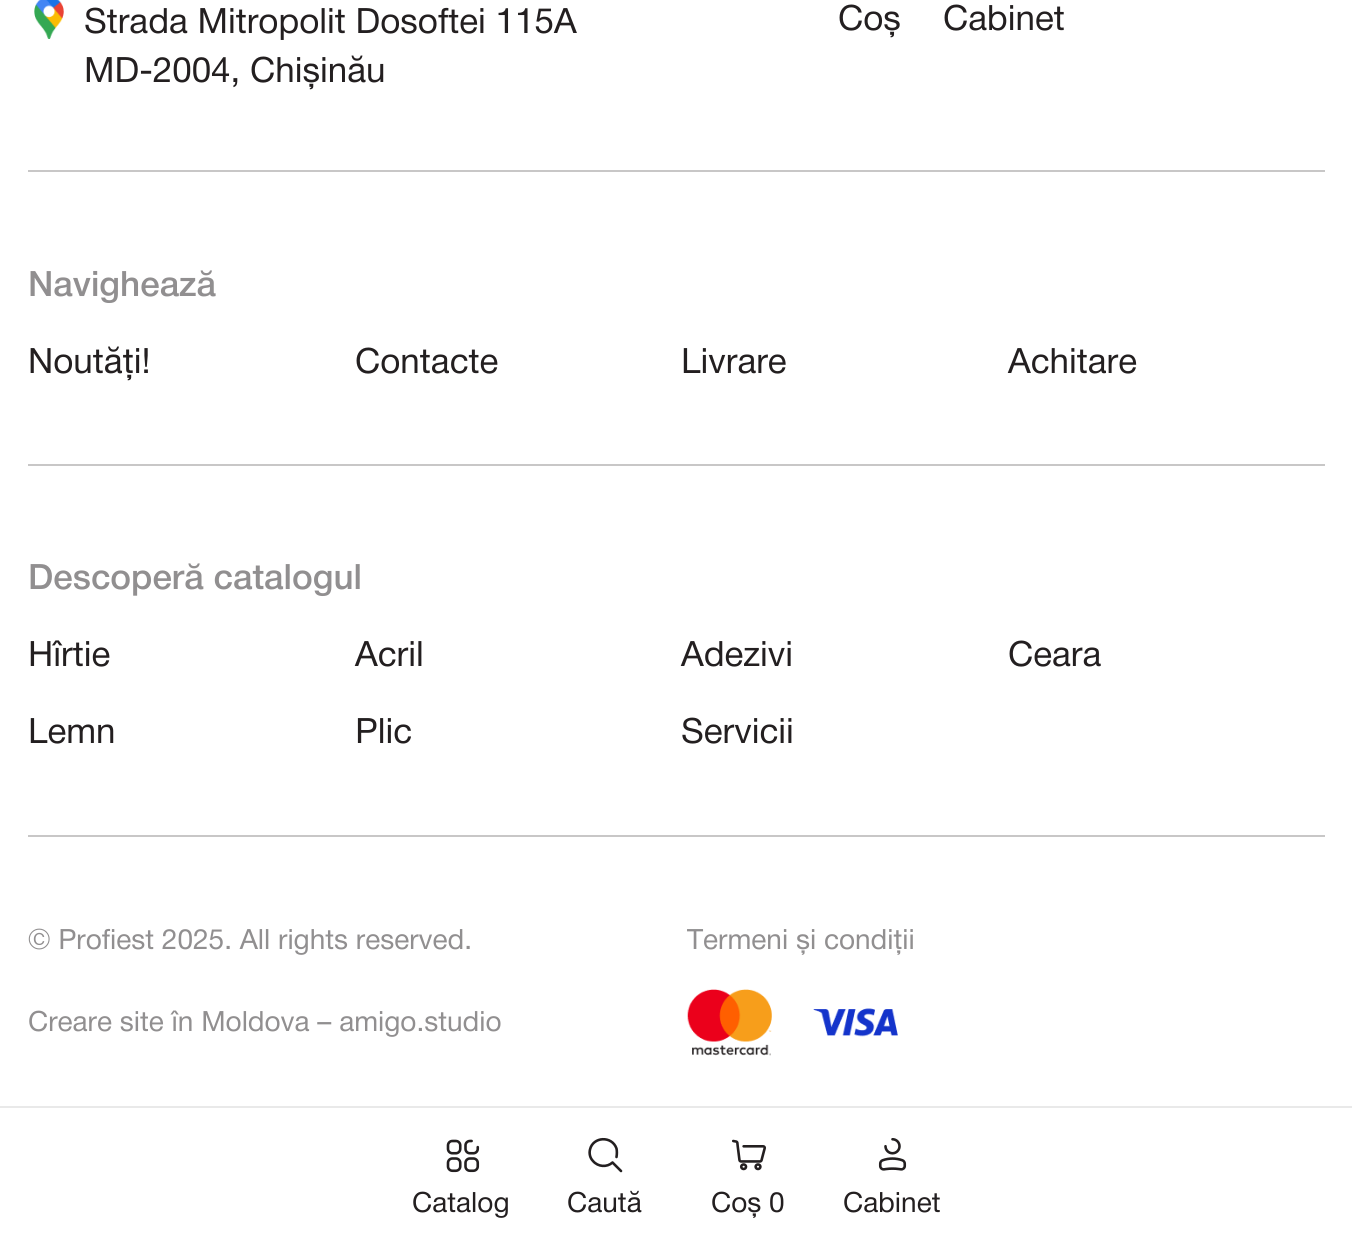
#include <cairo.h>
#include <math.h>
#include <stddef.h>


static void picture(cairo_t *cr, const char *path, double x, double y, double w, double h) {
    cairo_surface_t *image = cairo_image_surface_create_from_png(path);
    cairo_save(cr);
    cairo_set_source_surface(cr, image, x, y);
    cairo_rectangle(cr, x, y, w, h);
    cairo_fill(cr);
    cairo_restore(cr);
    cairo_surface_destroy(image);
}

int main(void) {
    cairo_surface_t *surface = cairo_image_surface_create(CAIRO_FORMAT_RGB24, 1352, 1249);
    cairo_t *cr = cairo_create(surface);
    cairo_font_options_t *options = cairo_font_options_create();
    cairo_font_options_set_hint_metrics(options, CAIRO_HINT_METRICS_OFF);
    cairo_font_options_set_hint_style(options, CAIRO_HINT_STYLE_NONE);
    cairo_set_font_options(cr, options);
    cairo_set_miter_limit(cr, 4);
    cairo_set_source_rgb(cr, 1, 1, 1);
    cairo_paint(cr);
    picture(cr, "img1.png", 34, 0, 30, 39);
    cairo_select_font_face(cr, "Helvetica Neue", CAIRO_FONT_SLANT_NORMAL, CAIRO_FONT_WEIGHT_NORMAL);
    cairo_set_font_size(cr, 35);
    cairo_set_source_rgb(cr, 0.137, 0.122, 0.125);
    cairo_move_to(cr, 84, 33);
    cairo_show_text(cr, "Strada Mitropolit Dosoftei 115A");
    cairo_move_to(cr, 84, 82);
    cairo_show_text(cr, "MD-2004, Chișinău");
    cairo_move_to(cr, 838, 30);
    cairo_show_text(cr, "Coș");
    cairo_move_to(cr, 943, 30);
    cairo_show_text(cr, "Cabinet");
    cairo_set_source_rgb(cr, 0.784, 0.78, 0.78);
    cairo_rectangle(cr, 28, 170, 1297, 2);
    cairo_fill(cr);
    cairo_select_font_face(cr, "Helvetica Neue Medium", CAIRO_FONT_SLANT_NORMAL, CAIRO_FONT_WEIGHT_NORMAL);
    cairo_set_source_rgb(cr, 0.569, 0.561, 0.565);
    cairo_move_to(cr, 28, 296);
    cairo_show_text(cr, "Navighează");
    cairo_select_font_face(cr, "Helvetica Neue", CAIRO_FONT_SLANT_NORMAL, CAIRO_FONT_WEIGHT_NORMAL);
    cairo_set_source_rgb(cr, 0.137, 0.122, 0.125);
    cairo_move_to(cr, 28, 373);
    cairo_show_text(cr, "Noutăți!");
    cairo_move_to(cr, 355, 373);
    cairo_show_text(cr, "Contacte");
    cairo_move_to(cr, 681, 373);
    cairo_show_text(cr, "Livrare");
    cairo_move_to(cr, 1008, 373);
    cairo_show_text(cr, "Achitare");
    cairo_set_source_rgb(cr, 0.784, 0.78, 0.78);
    cairo_rectangle(cr, 28, 464, 1297, 2);
    cairo_fill(cr);
    cairo_select_font_face(cr, "Helvetica Neue Medium", CAIRO_FONT_SLANT_NORMAL, CAIRO_FONT_WEIGHT_NORMAL);
    cairo_set_source_rgb(cr, 0.569, 0.561, 0.565);
    cairo_move_to(cr, 28, 589);
    cairo_show_text(cr, "Descoperă catalogul");
    cairo_select_font_face(cr, "Helvetica Neue", CAIRO_FONT_SLANT_NORMAL, CAIRO_FONT_WEIGHT_NORMAL);
    cairo_set_source_rgb(cr, 0.137, 0.122, 0.125);
    cairo_move_to(cr, 28, 666);
    cairo_show_text(cr, "Hîrtie");
    cairo_move_to(cr, 355, 666);
    cairo_show_text(cr, "Acril");
    cairo_move_to(cr, 681, 666);
    cairo_show_text(cr, "Adezivi");
    cairo_move_to(cr, 1008, 666);
    cairo_show_text(cr, "Ceara");
    cairo_move_to(cr, 28, 743);
    cairo_show_text(cr, "Lemn");
    cairo_move_to(cr, 355, 743);
    cairo_show_text(cr, "Plic");
    cairo_move_to(cr, 681, 743);
    cairo_show_text(cr, "Servicii");
    cairo_set_source_rgb(cr, 0.784, 0.78, 0.78);
    cairo_rectangle(cr, 28, 835, 1297, 2);
    cairo_fill(cr);
    cairo_set_font_size(cr, 28);
    cairo_set_source_rgb(cr, 0.569, 0.561, 0.565);
    cairo_move_to(cr, 28, 949);
    cairo_show_text(cr, "© Profiest 2025. All rights reserved.");
    cairo_move_to(cr, 687, 949);
    cairo_show_text(cr, "Termeni și condiții");
    cairo_move_to(cr, 28, 1031);
    cairo_show_text(cr, "Creare site în Moldova – amigo.studio");
    picture(cr, "img2.png", 687, 989, 85, 67);
    picture(cr, "img3.png", 813, 1008, 85, 29);
    cairo_set_source_rgb(cr, 0.914, 0.914, 0.914);
    cairo_rectangle(cr, 0, 1106, 1352, 2);
    cairo_fill(cr);
    picture(cr, "img4.png", 446, 1139, 34, 34);
    cairo_set_source_rgb(cr, 0.137, 0.122, 0.125);
    cairo_move_to(cr, 412, 1212);
    cairo_show_text(cr, "Catalog");
    cairo_new_path(cr);
    cairo_move_to(cr, 616.5, 1157);
    cairo_curve_to(cr, 617, 1154, 617, 1151, 616.5, 1148.5);
    cairo_curve_to(cr, 612, 1135.5, 593, 1136.5, 590, 1149.5);
    cairo_curve_to(cr, 589, 1153.5, 590, 1158, 593, 1161);
    cairo_curve_to(cr, 598, 1167, 607, 1167.5, 612.5, 1162.5);
    cairo_move_to(cr, 612.5, 1162.5);
    cairo_line_to(cr, 621, 1171);
    cairo_set_line_width(cr, 2.6);
    cairo_set_line_cap(cr, CAIRO_LINE_CAP_ROUND);
    cairo_set_line_join(cr, CAIRO_LINE_JOIN_ROUND);
    cairo_stroke(cr);
    cairo_move_to(cr, 567, 1212);
    cairo_show_text(cr, "Caută");
    picture(cr, "img5.png", 732, 1139, 34, 32);
    cairo_move_to(cr, 711, 1212);
    cairo_show_text(cr, "Coș 0");
    picture(cr, "img6.png", 878, 1138, 29, 33);
    cairo_move_to(cr, 843, 1212);
    cairo_show_text(cr, "Cabinet");
    cairo_surface_write_to_png(surface, "page.png");
    cairo_font_options_destroy(options);
    cairo_destroy(cr);
    cairo_surface_destroy(surface);
    return 0;
}
